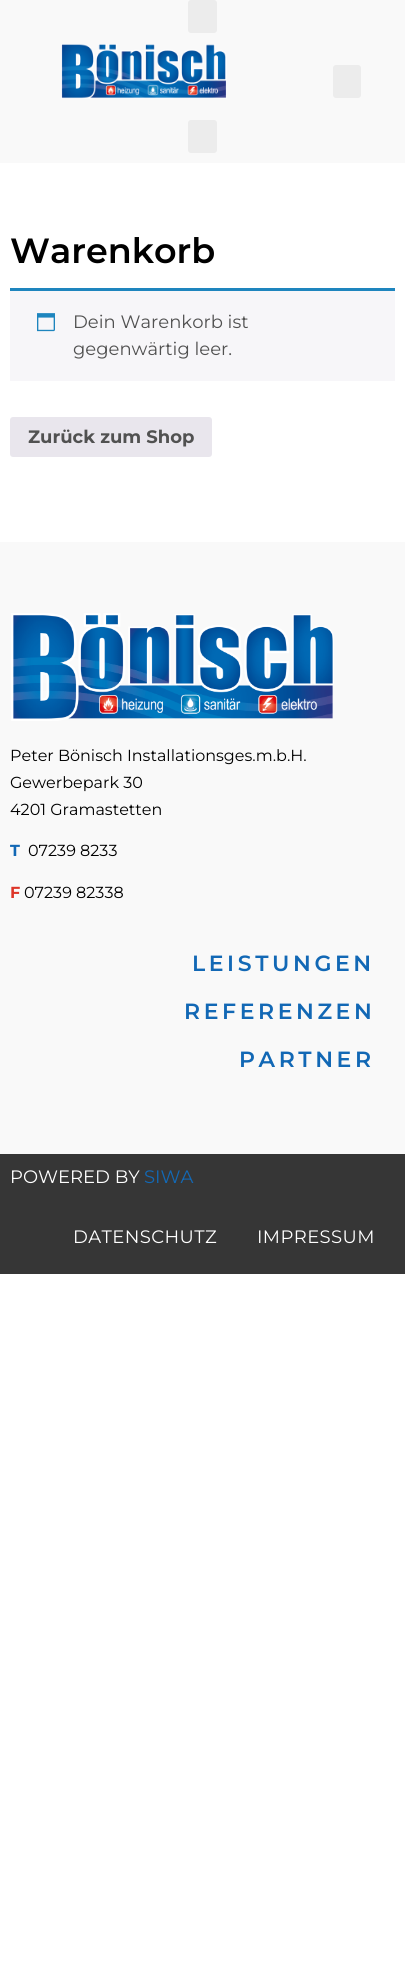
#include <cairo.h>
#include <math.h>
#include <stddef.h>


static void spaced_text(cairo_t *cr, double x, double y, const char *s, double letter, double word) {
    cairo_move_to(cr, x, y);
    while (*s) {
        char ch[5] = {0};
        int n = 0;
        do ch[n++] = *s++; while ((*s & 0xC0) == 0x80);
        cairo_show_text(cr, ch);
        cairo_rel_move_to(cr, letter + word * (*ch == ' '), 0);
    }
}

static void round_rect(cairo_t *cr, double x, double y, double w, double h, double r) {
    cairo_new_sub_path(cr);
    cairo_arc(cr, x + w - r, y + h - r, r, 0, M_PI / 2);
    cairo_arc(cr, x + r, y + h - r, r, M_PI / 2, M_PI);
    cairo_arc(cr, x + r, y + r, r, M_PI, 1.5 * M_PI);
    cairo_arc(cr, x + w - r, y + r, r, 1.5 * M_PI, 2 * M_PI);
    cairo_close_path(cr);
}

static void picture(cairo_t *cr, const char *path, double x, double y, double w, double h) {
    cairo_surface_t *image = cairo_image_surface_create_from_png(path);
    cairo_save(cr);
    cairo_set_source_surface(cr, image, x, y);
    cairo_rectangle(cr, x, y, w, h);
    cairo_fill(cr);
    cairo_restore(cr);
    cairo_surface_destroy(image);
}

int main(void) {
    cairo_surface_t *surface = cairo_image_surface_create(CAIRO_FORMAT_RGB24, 405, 1967);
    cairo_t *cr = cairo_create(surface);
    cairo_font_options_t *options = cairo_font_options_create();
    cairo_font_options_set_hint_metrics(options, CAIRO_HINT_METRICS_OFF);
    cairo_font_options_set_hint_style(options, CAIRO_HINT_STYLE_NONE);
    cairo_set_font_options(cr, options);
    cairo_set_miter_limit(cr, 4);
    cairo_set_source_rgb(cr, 1, 1, 1);
    cairo_paint(cr);
    cairo_set_source_rgb(cr, 0.973, 0.973, 0.973);
    cairo_rectangle(cr, 0, 0, 405, 163);
    cairo_fill(cr);
    cairo_set_source_rgb(cr, 0.925, 0.925, 0.925);
    round_rect(cr, 188, 0, 29, 33, 3);
    cairo_fill(cr);
    picture(cr, "img1.png", 61, 44, 166, 55);
    round_rect(cr, 333, 65, 28, 33, 3);
    cairo_fill(cr);
    round_rect(cr, 188, 120, 29, 33, 3);
    cairo_fill(cr);
    cairo_select_font_face(cr, "Montserrat Thin", CAIRO_FONT_SLANT_NORMAL, CAIRO_FONT_WEIGHT_NORMAL);
    cairo_set_font_size(cr, 35);
    cairo_set_source_rgb(cr, 0, 0, 0);
    cairo_move_to(cr, 10, 263);
    cairo_show_text(cr, "Warenkorb");
    cairo_set_source_rgb(cr, 0.965, 0.961, 0.973);
    cairo_rectangle(cr, 10, 291, 385, 90);
    cairo_fill(cr);
    cairo_set_source_rgb(cr, 0.118, 0.522, 0.745);
    cairo_rectangle(cr, 10, 288, 385, 3);
    cairo_fill(cr);
    picture(cr, "img2.png", 37, 313, 18, 19);
    cairo_select_font_face(cr, "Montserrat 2 Thin", CAIRO_FONT_SLANT_NORMAL, CAIRO_FONT_WEIGHT_NORMAL);
    cairo_set_font_size(cr, 18);
    cairo_set_source_rgb(cr, 0.318, 0.318, 0.318);
    cairo_move_to(cr, 73, 328);
    cairo_show_text(cr, "Dein Warenkorb ist");
    cairo_move_to(cr, 73, 355);
    cairo_show_text(cr, "gegenwärtig leer.");
    cairo_set_source_rgb(cr, 0.914, 0.902, 0.929);
    round_rect(cr, 10, 417, 202, 40, 3);
    cairo_fill(cr);
    cairo_select_font_face(cr, "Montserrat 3 Thin", CAIRO_FONT_SLANT_NORMAL, CAIRO_FONT_WEIGHT_NORMAL);
    cairo_set_source_rgb(cr, 0.318, 0.318, 0.318);
    cairo_move_to(cr, 28, 443);
    cairo_show_text(cr, "Zurück zum Shop");
    cairo_set_source_rgb(cr, 0.973, 0.973, 0.973);
    cairo_rectangle(cr, 0, 542, 405, 612);
    cairo_fill(cr);
    picture(cr, "img3.png", 11, 613, 323, 108);
    cairo_select_font_face(cr, "Montserrat 2 Thin", CAIRO_FONT_SLANT_NORMAL, CAIRO_FONT_WEIGHT_NORMAL);
    cairo_set_font_size(cr, 16);
    cairo_set_source_rgb(cr, 0, 0, 0);
    cairo_move_to(cr, 10, 761);
    cairo_show_text(cr, "Peter Bönisch Installationsges.m.b.H.");
    cairo_move_to(cr, 10, 788);
    cairo_show_text(cr, "Gewerbepark 30");
    cairo_move_to(cr, 10, 815);
    cairo_show_text(cr, "4201 Gramastetten");
    cairo_select_font_face(cr, "Montserrat 3 Thin", CAIRO_FONT_SLANT_NORMAL, CAIRO_FONT_WEIGHT_NORMAL);
    cairo_set_source_rgb(cr, 0.071, 0.408, 0.71);
    cairo_move_to(cr, 10, 856);
    cairo_show_text(cr, "T");
    cairo_select_font_face(cr, "Montserrat 2 Thin", CAIRO_FONT_SLANT_NORMAL, CAIRO_FONT_WEIGHT_NORMAL);
    cairo_set_source_rgb(cr, 0, 0, 0);
    cairo_move_to(cr, 28, 856);
    cairo_show_text(cr, "07239 8233");
    cairo_select_font_face(cr, "Montserrat 3 Thin", CAIRO_FONT_SLANT_NORMAL, CAIRO_FONT_WEIGHT_NORMAL);
    cairo_set_source_rgb(cr, 0.867, 0.208, 0.157);
    cairo_move_to(cr, 10, 898);
    cairo_show_text(cr, "F");
    cairo_select_font_face(cr, "Montserrat 2 Thin", CAIRO_FONT_SLANT_NORMAL, CAIRO_FONT_WEIGHT_NORMAL);
    cairo_set_source_rgb(cr, 0, 0, 0);
    cairo_move_to(cr, 24, 898);
    cairo_show_text(cr, "07239 82338");
    cairo_select_font_face(cr, "Montserrat Thin", CAIRO_FONT_SLANT_NORMAL, CAIRO_FONT_WEIGHT_NORMAL);
    cairo_set_font_size(cr, 22);
    cairo_set_source_rgb(cr, 0.071, 0.408, 0.71);
    spaced_text(cr, 192, 971, "LEISTUNGEN", 3.6, 0);
    spaced_text(cr, 184, 1019, "REFERENZEN", 3.6, 0);
    spaced_text(cr, 239, 1067, "PARTNER", 3.6, 0);
    cairo_set_source_rgb(cr, 0.212, 0.212, 0.212);
    cairo_rectangle(cr, 0, 1154, 405, 120);
    cairo_fill(cr);
    cairo_select_font_face(cr, "Montserrat 2 Thin", CAIRO_FONT_SLANT_NORMAL, CAIRO_FONT_WEIGHT_NORMAL);
    cairo_set_font_size(cr, 18);
    cairo_set_source_rgb(cr, 1, 1, 1);
    cairo_move_to(cr, 10, 1183);
    cairo_show_text(cr, "POWERED BY");
    cairo_set_source_rgb(cr, 0.071, 0.408, 0.71);
    cairo_move_to(cr, 144, 1183);
    cairo_show_text(cr, "SIWA");
    cairo_set_source_rgb(cr, 1, 1, 1);
    spaced_text(cr, 73, 1243, "DATENSCHUTZ", 0.4, 0);
    spaced_text(cr, 257, 1243, "IMPRESSUM", 0.4, 0);
    cairo_surface_write_to_png(surface, "page.png");
    cairo_font_options_destroy(options);
    cairo_destroy(cr);
    cairo_surface_destroy(surface);
    return 0;
}
